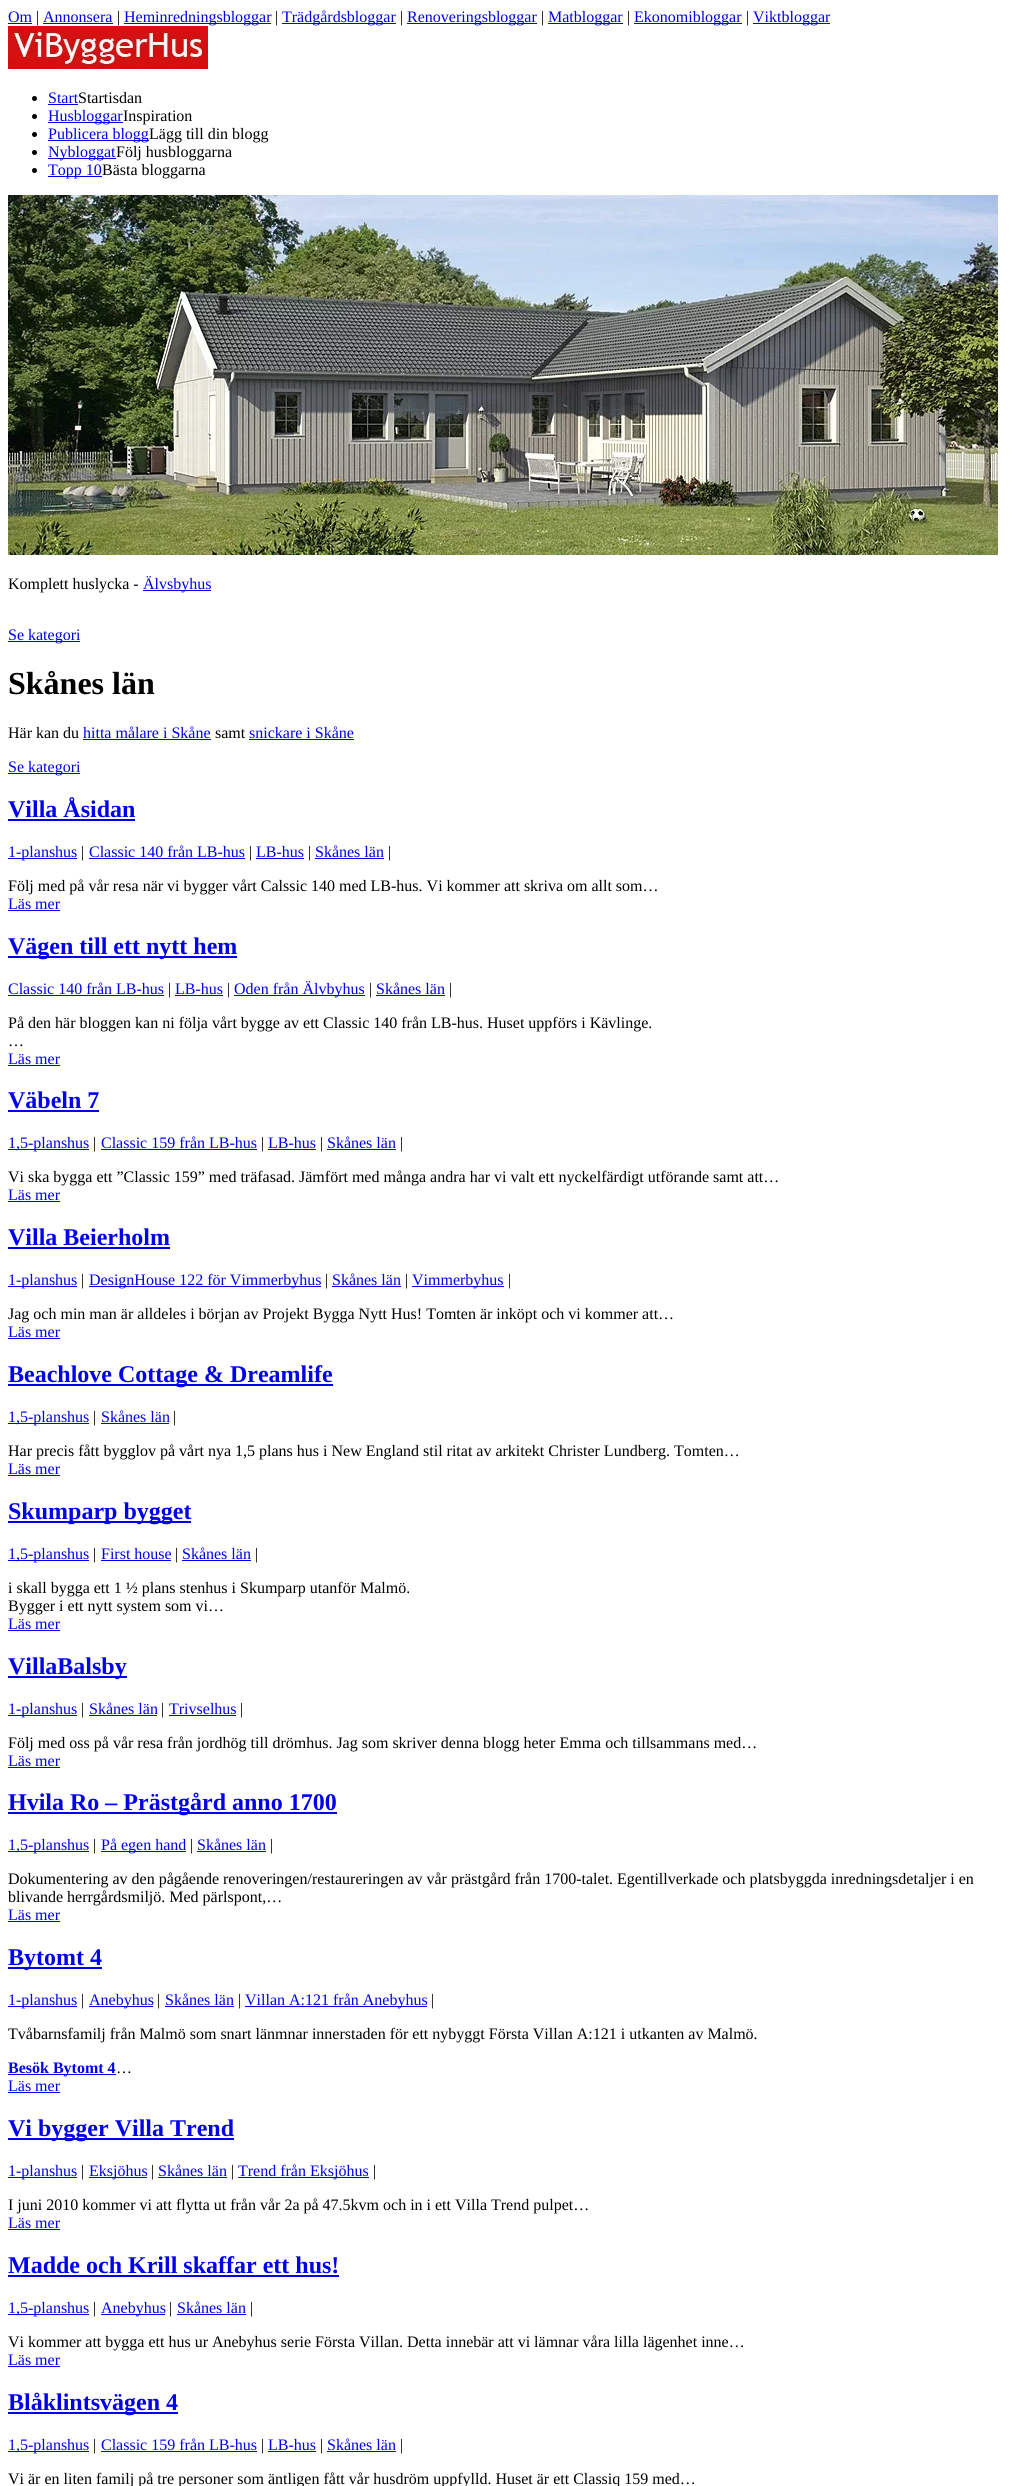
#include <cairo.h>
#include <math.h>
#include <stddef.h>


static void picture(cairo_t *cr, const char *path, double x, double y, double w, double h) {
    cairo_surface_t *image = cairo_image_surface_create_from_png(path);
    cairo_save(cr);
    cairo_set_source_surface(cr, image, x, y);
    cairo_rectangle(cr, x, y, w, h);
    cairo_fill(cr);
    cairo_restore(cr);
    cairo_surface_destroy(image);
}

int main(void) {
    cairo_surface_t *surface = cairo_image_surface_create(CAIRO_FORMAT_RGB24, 1026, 2486);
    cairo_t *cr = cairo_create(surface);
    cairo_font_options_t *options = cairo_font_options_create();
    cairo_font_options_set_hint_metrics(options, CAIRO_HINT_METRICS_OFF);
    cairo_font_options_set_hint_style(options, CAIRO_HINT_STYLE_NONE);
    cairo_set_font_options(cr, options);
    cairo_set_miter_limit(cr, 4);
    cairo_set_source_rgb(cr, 1, 1, 1);
    cairo_paint(cr);
    cairo_select_font_face(cr, "Liberation Serif", CAIRO_FONT_SLANT_NORMAL, CAIRO_FONT_WEIGHT_NORMAL);
    cairo_set_font_size(cr, 16);
    cairo_set_source_rgb(cr, 0, 0, 0.933);
    cairo_move_to(cr, 8, 22);
    cairo_show_text(cr, "Om");
    cairo_rectangle(cr, 8, 23, 24, 1);
    cairo_fill(cr);
    cairo_set_source_rgb(cr, 0, 0, 0);
    cairo_move_to(cr, 36, 22);
    cairo_show_text(cr, "|");
    cairo_set_source_rgb(cr, 0, 0, 0.933);
    cairo_move_to(cr, 43, 22);
    cairo_show_text(cr, "Annonsera");
    cairo_rectangle(cr, 43, 23, 70, 1);
    cairo_fill(cr);
    cairo_set_source_rgb(cr, 0, 0, 0);
    cairo_move_to(cr, 117, 22);
    cairo_show_text(cr, "|");
    cairo_set_source_rgb(cr, 0, 0, 0.933);
    cairo_rectangle(cr, 124, 23, 147, 1);
    cairo_fill(cr);
    cairo_move_to(cr, 124, 22);
    cairo_show_text(cr, "Heminredningsbloggar");
    cairo_set_source_rgb(cr, 0, 0, 0);
    cairo_move_to(cr, 275, 22);
    cairo_show_text(cr, "|");
    cairo_set_source_rgb(cr, 0, 0, 0.933);
    cairo_rectangle(cr, 282, 23, 114, 1);
    cairo_fill(cr);
    cairo_move_to(cr, 282, 22);
    cairo_show_text(cr, "Trädgårdsbloggar");
    cairo_set_source_rgb(cr, 0, 0, 0);
    cairo_move_to(cr, 400, 22);
    cairo_show_text(cr, "|");
    cairo_set_source_rgb(cr, 0, 0, 0.933);
    cairo_rectangle(cr, 407, 23, 130, 1);
    cairo_fill(cr);
    cairo_move_to(cr, 407, 22);
    cairo_show_text(cr, "Renoveringsbloggar");
    cairo_set_source_rgb(cr, 0, 0, 0);
    cairo_move_to(cr, 541, 22);
    cairo_show_text(cr, "|");
    cairo_set_source_rgb(cr, 0, 0, 0.933);
    cairo_rectangle(cr, 548, 23, 75, 1);
    cairo_fill(cr);
    cairo_move_to(cr, 548, 22);
    cairo_show_text(cr, "Matbloggar");
    cairo_set_source_rgb(cr, 0, 0, 0);
    cairo_move_to(cr, 627, 22);
    cairo_show_text(cr, "|");
    cairo_set_source_rgb(cr, 0, 0, 0.933);
    cairo_rectangle(cr, 634, 23, 108, 1);
    cairo_fill(cr);
    cairo_move_to(cr, 634, 22);
    cairo_show_text(cr, "Ekonomibloggar");
    cairo_set_source_rgb(cr, 0, 0, 0);
    cairo_move_to(cr, 746, 22);
    cairo_show_text(cr, "|");
    cairo_set_source_rgb(cr, 0, 0, 0.933);
    cairo_rectangle(cr, 753, 23, 77, 1);
    cairo_fill(cr);
    cairo_move_to(cr, 753, 22);
    cairo_show_text(cr, "Viktbloggar");
    picture(cr, "img1.png", 8, 26, 200, 43);
    cairo_set_source_rgb(cr, 0, 0, 0);
    cairo_arc(cr, 34.5, 98.5, 2.5, 0, 2 * M_PI);
    cairo_fill(cr);
    cairo_set_source_rgb(cr, 0, 0, 0.933);
    cairo_move_to(cr, 48, 103);
    cairo_show_text(cr, "Start");
    cairo_rectangle(cr, 48, 104, 30, 1);
    cairo_fill(cr);
    cairo_set_source_rgb(cr, 0, 0, 0);
    cairo_move_to(cr, 78, 103);
    cairo_show_text(cr, "Startisdan");
    cairo_new_path(cr);
    cairo_arc(cr, 34.5, 116.5, 2.5, 0, 2 * M_PI);
    cairo_fill(cr);
    cairo_set_source_rgb(cr, 0, 0, 0.933);
    cairo_rectangle(cr, 48, 122, 75, 1);
    cairo_fill(cr);
    cairo_move_to(cr, 48, 121);
    cairo_show_text(cr, "Husbloggar");
    cairo_set_source_rgb(cr, 0, 0, 0);
    cairo_move_to(cr, 123, 121);
    cairo_show_text(cr, "Inspiration");
    cairo_new_path(cr);
    cairo_arc(cr, 34.5, 134.5, 2.5, 0, 2 * M_PI);
    cairo_fill(cr);
    cairo_set_source_rgb(cr, 0, 0, 0.933);
    cairo_rectangle(cr, 48, 140, 101, 1);
    cairo_fill(cr);
    cairo_move_to(cr, 48, 139);
    cairo_show_text(cr, "Publicera blogg");
    cairo_set_source_rgb(cr, 0, 0, 0);
    cairo_move_to(cr, 149, 139);
    cairo_show_text(cr, "Lägg till din blogg");
    cairo_new_path(cr);
    cairo_arc(cr, 34.5, 152.5, 2.5, 0, 2 * M_PI);
    cairo_fill(cr);
    cairo_set_source_rgb(cr, 0, 0, 0.933);
    cairo_rectangle(cr, 48, 158, 68, 1);
    cairo_fill(cr);
    cairo_move_to(cr, 48, 157);
    cairo_show_text(cr, "Nybloggat");
    cairo_set_source_rgb(cr, 0, 0, 0);
    cairo_move_to(cr, 116, 157);
    cairo_show_text(cr, "Följ husbloggarna");
    cairo_new_path(cr);
    cairo_arc(cr, 34.5, 170.5, 2.5, 0, 2 * M_PI);
    cairo_fill(cr);
    cairo_set_source_rgb(cr, 0, 0, 0.933);
    cairo_rectangle(cr, 48, 176, 54, 1);
    cairo_fill(cr);
    cairo_move_to(cr, 48, 175);
    cairo_show_text(cr, "Topp 10");
    cairo_set_source_rgb(cr, 0, 0, 0);
    cairo_move_to(cr, 102, 175);
    cairo_show_text(cr, "Bästa bloggarna");
    picture(cr, "img2.png", 8, 195, 990, 360);
    cairo_move_to(cr, 8, 589);
    cairo_show_text(cr, "Komplett huslycka -");
    cairo_set_source_rgb(cr, 0, 0, 0.933);
    cairo_rectangle(cr, 143, 590, 68, 1);
    cairo_fill(cr);
    cairo_move_to(cr, 143, 589);
    cairo_show_text(cr, "Älvsbyhus");
    cairo_rectangle(cr, 8, 641, 72, 1);
    cairo_fill(cr);
    cairo_move_to(cr, 8, 640);
    cairo_show_text(cr, "Se kategori");
    cairo_select_font_face(cr, "Liberation Serif", CAIRO_FONT_SLANT_NORMAL, CAIRO_FONT_WEIGHT_BOLD);
    cairo_set_font_size(cr, 32);
    cairo_set_source_rgb(cr, 0, 0, 0);
    cairo_move_to(cr, 8, 694);
    cairo_show_text(cr, "Skånes län");
    cairo_select_font_face(cr, "Liberation Serif", CAIRO_FONT_SLANT_NORMAL, CAIRO_FONT_WEIGHT_NORMAL);
    cairo_set_font_size(cr, 16);
    cairo_move_to(cr, 8, 738);
    cairo_show_text(cr, "Här kan du");
    cairo_set_source_rgb(cr, 0, 0, 0.933);
    cairo_move_to(cr, 83, 738);
    cairo_show_text(cr, "hitta målare i Skåne");
    cairo_rectangle(cr, 83, 739, 128, 1);
    cairo_fill(cr);
    cairo_set_source_rgb(cr, 0, 0, 0);
    cairo_move_to(cr, 215, 738);
    cairo_show_text(cr, "samt");
    cairo_set_source_rgb(cr, 0, 0, 0.933);
    cairo_move_to(cr, 249, 738);
    cairo_show_text(cr, "snickare i Skåne");
    cairo_rectangle(cr, 249, 739, 105, 1);
    cairo_fill(cr);
    cairo_rectangle(cr, 8, 773, 72, 1);
    cairo_fill(cr);
    cairo_move_to(cr, 8, 772);
    cairo_show_text(cr, "Se kategori");
    cairo_select_font_face(cr, "Liberation Serif", CAIRO_FONT_SLANT_NORMAL, CAIRO_FONT_WEIGHT_BOLD);
    cairo_set_font_size(cr, 24);
    cairo_move_to(cr, 8, 817);
    cairo_show_text(cr, "Villa Åsidan");
    cairo_rectangle(cr, 8, 819, 127, 2);
    cairo_fill(cr);
    cairo_rectangle(cr, 8, 858, 69, 1);
    cairo_fill(cr);
    cairo_select_font_face(cr, "Liberation Serif", CAIRO_FONT_SLANT_NORMAL, CAIRO_FONT_WEIGHT_NORMAL);
    cairo_set_font_size(cr, 16);
    cairo_move_to(cr, 8, 857);
    cairo_show_text(cr, "1-planshus");
    cairo_set_source_rgb(cr, 0, 0, 0);
    cairo_move_to(cr, 81, 857);
    cairo_show_text(cr, "|");
    cairo_set_source_rgb(cr, 0, 0, 0.933);
    cairo_move_to(cr, 89, 857);
    cairo_show_text(cr, "Classic 140 från LB-hus");
    cairo_rectangle(cr, 89, 858, 156, 1);
    cairo_fill(cr);
    cairo_set_source_rgb(cr, 0, 0, 0);
    cairo_move_to(cr, 249, 857);
    cairo_show_text(cr, "|");
    cairo_set_source_rgb(cr, 0, 0, 0.933);
    cairo_move_to(cr, 256, 857);
    cairo_show_text(cr, "LB-hus");
    cairo_rectangle(cr, 256, 858, 48, 1);
    cairo_fill(cr);
    cairo_set_source_rgb(cr, 0, 0, 0);
    cairo_move_to(cr, 308, 857);
    cairo_show_text(cr, "|");
    cairo_set_source_rgb(cr, 0, 0, 0.933);
    cairo_move_to(cr, 315, 857);
    cairo_show_text(cr, "Skånes län");
    cairo_rectangle(cr, 315, 858, 69, 1);
    cairo_fill(cr);
    cairo_set_source_rgb(cr, 0, 0, 0);
    cairo_move_to(cr, 388, 857);
    cairo_show_text(cr, "|");
    cairo_move_to(cr, 8, 891);
    cairo_show_text(cr, "Följ med på vår resa när vi bygger vårt Calssic 140 med LB-hus. Vi kommer att skriva om allt som…");
    cairo_set_source_rgb(cr, 0, 0, 0.933);
    cairo_move_to(cr, 8, 909);
    cairo_show_text(cr, "Läs mer");
    cairo_rectangle(cr, 8, 910, 52, 1);
    cairo_fill(cr);
    cairo_rectangle(cr, 8, 956, 229, 2);
    cairo_fill(cr);
    cairo_select_font_face(cr, "Liberation Serif", CAIRO_FONT_SLANT_NORMAL, CAIRO_FONT_WEIGHT_BOLD);
    cairo_set_font_size(cr, 24);
    cairo_move_to(cr, 8, 954);
    cairo_show_text(cr, "Vägen till ett nytt hem");
    cairo_select_font_face(cr, "Liberation Serif", CAIRO_FONT_SLANT_NORMAL, CAIRO_FONT_WEIGHT_NORMAL);
    cairo_set_font_size(cr, 16);
    cairo_move_to(cr, 8, 994);
    cairo_show_text(cr, "Classic 140 från LB-hus");
    cairo_rectangle(cr, 8, 995, 156, 1);
    cairo_fill(cr);
    cairo_set_source_rgb(cr, 0, 0, 0);
    cairo_move_to(cr, 168, 994);
    cairo_show_text(cr, "|");
    cairo_set_source_rgb(cr, 0, 0, 0.933);
    cairo_move_to(cr, 175, 994);
    cairo_show_text(cr, "LB-hus");
    cairo_rectangle(cr, 175, 995, 48, 1);
    cairo_fill(cr);
    cairo_set_source_rgb(cr, 0, 0, 0);
    cairo_move_to(cr, 227, 994);
    cairo_show_text(cr, "|");
    cairo_set_source_rgb(cr, 0, 0, 0.933);
    cairo_rectangle(cr, 234, 995, 131, 1);
    cairo_fill(cr);
    cairo_move_to(cr, 234, 994);
    cairo_show_text(cr, "Oden från Älvbyhus");
    cairo_set_source_rgb(cr, 0, 0, 0);
    cairo_move_to(cr, 369, 994);
    cairo_show_text(cr, "|");
    cairo_set_source_rgb(cr, 0, 0, 0.933);
    cairo_move_to(cr, 376, 994);
    cairo_show_text(cr, "Skånes län");
    cairo_rectangle(cr, 376, 995, 69, 1);
    cairo_fill(cr);
    cairo_set_source_rgb(cr, 0, 0, 0);
    cairo_move_to(cr, 449, 994);
    cairo_show_text(cr, "|");
    cairo_move_to(cr, 8, 1028);
    cairo_show_text(cr, "På den här bloggen kan ni följa vårt bygge av ett Classic 140 från LB-hus. Huset uppförs i Kävlinge.");
    cairo_move_to(cr, 8, 1046);
    cairo_show_text(cr, "…");
    cairo_set_source_rgb(cr, 0, 0, 0.933);
    cairo_move_to(cr, 8, 1064);
    cairo_show_text(cr, "Läs mer");
    cairo_rectangle(cr, 8, 1065, 52, 1);
    cairo_fill(cr);
    cairo_select_font_face(cr, "Liberation Serif", CAIRO_FONT_SLANT_NORMAL, CAIRO_FONT_WEIGHT_BOLD);
    cairo_set_font_size(cr, 24);
    cairo_move_to(cr, 8, 1108);
    cairo_show_text(cr, "Väbeln 7");
    cairo_rectangle(cr, 8, 1110, 91, 2);
    cairo_fill(cr);
    cairo_rectangle(cr, 8, 1149, 81, 1);
    cairo_fill(cr);
    cairo_select_font_face(cr, "Liberation Serif", CAIRO_FONT_SLANT_NORMAL, CAIRO_FONT_WEIGHT_NORMAL);
    cairo_set_font_size(cr, 16);
    cairo_move_to(cr, 8, 1148);
    cairo_show_text(cr, "1,5-planshus");
    cairo_set_source_rgb(cr, 0, 0, 0);
    cairo_move_to(cr, 93, 1148);
    cairo_show_text(cr, "|");
    cairo_set_source_rgb(cr, 0, 0, 0.933);
    cairo_move_to(cr, 101, 1148);
    cairo_show_text(cr, "Classic 159 från LB-hus");
    cairo_rectangle(cr, 101, 1149, 156, 1);
    cairo_fill(cr);
    cairo_set_source_rgb(cr, 0, 0, 0);
    cairo_move_to(cr, 261, 1148);
    cairo_show_text(cr, "|");
    cairo_set_source_rgb(cr, 0, 0, 0.933);
    cairo_move_to(cr, 268, 1148);
    cairo_show_text(cr, "LB-hus");
    cairo_rectangle(cr, 268, 1149, 48, 1);
    cairo_fill(cr);
    cairo_set_source_rgb(cr, 0, 0, 0);
    cairo_move_to(cr, 320, 1148);
    cairo_show_text(cr, "|");
    cairo_set_source_rgb(cr, 0, 0, 0.933);
    cairo_move_to(cr, 327, 1148);
    cairo_show_text(cr, "Skånes län");
    cairo_rectangle(cr, 327, 1149, 69, 1);
    cairo_fill(cr);
    cairo_set_source_rgb(cr, 0, 0, 0);
    cairo_move_to(cr, 400, 1148);
    cairo_show_text(cr, "|");
    cairo_move_to(cr, 8, 1182);
    cairo_show_text(cr, "Vi ska bygga ett ”Classic 159” med träfasad. Jämfört med många andra har vi valt ett nyckelfärdigt utförande samt att…");
    cairo_set_source_rgb(cr, 0, 0, 0.933);
    cairo_move_to(cr, 8, 1200);
    cairo_show_text(cr, "Läs mer");
    cairo_rectangle(cr, 8, 1201, 52, 1);
    cairo_fill(cr);
    cairo_select_font_face(cr, "Liberation Serif", CAIRO_FONT_SLANT_NORMAL, CAIRO_FONT_WEIGHT_BOLD);
    cairo_set_font_size(cr, 24);
    cairo_move_to(cr, 8, 1245);
    cairo_show_text(cr, "Villa Beierholm");
    cairo_rectangle(cr, 8, 1247, 162, 2);
    cairo_fill(cr);
    cairo_rectangle(cr, 8, 1286, 69, 1);
    cairo_fill(cr);
    cairo_select_font_face(cr, "Liberation Serif", CAIRO_FONT_SLANT_NORMAL, CAIRO_FONT_WEIGHT_NORMAL);
    cairo_set_font_size(cr, 16);
    cairo_move_to(cr, 8, 1285);
    cairo_show_text(cr, "1-planshus");
    cairo_set_source_rgb(cr, 0, 0, 0);
    cairo_move_to(cr, 81, 1285);
    cairo_show_text(cr, "|");
    cairo_set_source_rgb(cr, 0, 0, 0.933);
    cairo_rectangle(cr, 89, 1286, 232, 1);
    cairo_fill(cr);
    cairo_move_to(cr, 89, 1285);
    cairo_show_text(cr, "DesignHouse 122 för Vimmerbyhus");
    cairo_set_source_rgb(cr, 0, 0, 0);
    cairo_move_to(cr, 325, 1285);
    cairo_show_text(cr, "|");
    cairo_set_source_rgb(cr, 0, 0, 0.933);
    cairo_move_to(cr, 332, 1285);
    cairo_show_text(cr, "Skånes län");
    cairo_rectangle(cr, 332, 1286, 69, 1);
    cairo_fill(cr);
    cairo_set_source_rgb(cr, 0, 0, 0);
    cairo_move_to(cr, 405, 1285);
    cairo_show_text(cr, "|");
    cairo_set_source_rgb(cr, 0, 0, 0.933);
    cairo_rectangle(cr, 412, 1286, 92, 1);
    cairo_fill(cr);
    cairo_move_to(cr, 412, 1285);
    cairo_show_text(cr, "Vimmerbyhus");
    cairo_set_source_rgb(cr, 0, 0, 0);
    cairo_move_to(cr, 508, 1285);
    cairo_show_text(cr, "|");
    cairo_move_to(cr, 8, 1319);
    cairo_show_text(cr, "Jag och min man är alldeles i början av Projekt Bygga Nytt Hus! Tomten är inköpt och vi kommer att…");
    cairo_set_source_rgb(cr, 0, 0, 0.933);
    cairo_move_to(cr, 8, 1337);
    cairo_show_text(cr, "Läs mer");
    cairo_rectangle(cr, 8, 1338, 52, 1);
    cairo_fill(cr);
    cairo_rectangle(cr, 8, 1384, 325, 2);
    cairo_fill(cr);
    cairo_select_font_face(cr, "Liberation Serif", CAIRO_FONT_SLANT_NORMAL, CAIRO_FONT_WEIGHT_BOLD);
    cairo_set_font_size(cr, 24);
    cairo_move_to(cr, 8, 1382);
    cairo_show_text(cr, "Beachlove Cottage & Dreamlife");
    cairo_rectangle(cr, 8, 1423, 81, 1);
    cairo_fill(cr);
    cairo_select_font_face(cr, "Liberation Serif", CAIRO_FONT_SLANT_NORMAL, CAIRO_FONT_WEIGHT_NORMAL);
    cairo_set_font_size(cr, 16);
    cairo_move_to(cr, 8, 1422);
    cairo_show_text(cr, "1,5-planshus");
    cairo_set_source_rgb(cr, 0, 0, 0);
    cairo_move_to(cr, 93, 1422);
    cairo_show_text(cr, "|");
    cairo_set_source_rgb(cr, 0, 0, 0.933);
    cairo_move_to(cr, 101, 1422);
    cairo_show_text(cr, "Skånes län");
    cairo_rectangle(cr, 101, 1423, 68, 1);
    cairo_fill(cr);
    cairo_set_source_rgb(cr, 0, 0, 0);
    cairo_move_to(cr, 173, 1422);
    cairo_show_text(cr, "|");
    cairo_move_to(cr, 8, 1456);
    cairo_show_text(cr, "Har precis fått bygglov på vårt nya 1,5 plans hus i New England stil ritat av arkitekt Christer Lundberg. Tomten…");
    cairo_set_source_rgb(cr, 0, 0, 0.933);
    cairo_move_to(cr, 8, 1474);
    cairo_show_text(cr, "Läs mer");
    cairo_rectangle(cr, 8, 1475, 52, 1);
    cairo_fill(cr);
    cairo_rectangle(cr, 8, 1521, 183, 2);
    cairo_fill(cr);
    cairo_select_font_face(cr, "Liberation Serif", CAIRO_FONT_SLANT_NORMAL, CAIRO_FONT_WEIGHT_BOLD);
    cairo_set_font_size(cr, 24);
    cairo_move_to(cr, 8, 1519);
    cairo_show_text(cr, "Skumparp bygget");
    cairo_rectangle(cr, 8, 1560, 81, 1);
    cairo_fill(cr);
    cairo_select_font_face(cr, "Liberation Serif", CAIRO_FONT_SLANT_NORMAL, CAIRO_FONT_WEIGHT_NORMAL);
    cairo_set_font_size(cr, 16);
    cairo_move_to(cr, 8, 1559);
    cairo_show_text(cr, "1,5-planshus");
    cairo_set_source_rgb(cr, 0, 0, 0);
    cairo_move_to(cr, 93, 1559);
    cairo_show_text(cr, "|");
    cairo_set_source_rgb(cr, 0, 0, 0.933);
    cairo_move_to(cr, 101, 1559);
    cairo_show_text(cr, "First house");
    cairo_rectangle(cr, 101, 1560, 70, 1);
    cairo_fill(cr);
    cairo_set_source_rgb(cr, 0, 0, 0);
    cairo_move_to(cr, 175, 1559);
    cairo_show_text(cr, "|");
    cairo_set_source_rgb(cr, 0, 0, 0.933);
    cairo_move_to(cr, 182, 1559);
    cairo_show_text(cr, "Skånes län");
    cairo_rectangle(cr, 182, 1560, 69, 1);
    cairo_fill(cr);
    cairo_set_source_rgb(cr, 0, 0, 0);
    cairo_move_to(cr, 255, 1559);
    cairo_show_text(cr, "|");
    cairo_move_to(cr, 8, 1593);
    cairo_show_text(cr, "i skall bygga ett 1 ½ plans stenhus i Skumparp utanför Malmö.");
    cairo_move_to(cr, 8, 1611);
    cairo_show_text(cr, "Bygger i ett nytt system som vi…");
    cairo_set_source_rgb(cr, 0, 0, 0.933);
    cairo_move_to(cr, 8, 1629);
    cairo_show_text(cr, "Läs mer");
    cairo_rectangle(cr, 8, 1630, 52, 1);
    cairo_fill(cr);
    cairo_rectangle(cr, 8, 1676, 119, 2);
    cairo_fill(cr);
    cairo_select_font_face(cr, "Liberation Serif", CAIRO_FONT_SLANT_NORMAL, CAIRO_FONT_WEIGHT_BOLD);
    cairo_set_font_size(cr, 24);
    cairo_move_to(cr, 8, 1674);
    cairo_show_text(cr, "VillaBalsby");
    cairo_rectangle(cr, 8, 1715, 69, 1);
    cairo_fill(cr);
    cairo_select_font_face(cr, "Liberation Serif", CAIRO_FONT_SLANT_NORMAL, CAIRO_FONT_WEIGHT_NORMAL);
    cairo_set_font_size(cr, 16);
    cairo_move_to(cr, 8, 1714);
    cairo_show_text(cr, "1-planshus");
    cairo_set_source_rgb(cr, 0, 0, 0);
    cairo_move_to(cr, 81, 1714);
    cairo_show_text(cr, "|");
    cairo_set_source_rgb(cr, 0, 0, 0.933);
    cairo_move_to(cr, 89, 1714);
    cairo_show_text(cr, "Skånes län");
    cairo_rectangle(cr, 89, 1715, 68, 1);
    cairo_fill(cr);
    cairo_set_source_rgb(cr, 0, 0, 0);
    cairo_move_to(cr, 161, 1714);
    cairo_show_text(cr, "|");
    cairo_set_source_rgb(cr, 0, 0, 0.933);
    cairo_move_to(cr, 169, 1714);
    cairo_show_text(cr, "Trivselhus");
    cairo_rectangle(cr, 169, 1715, 67, 1);
    cairo_fill(cr);
    cairo_set_source_rgb(cr, 0, 0, 0);
    cairo_move_to(cr, 240, 1714);
    cairo_show_text(cr, "|");
    cairo_move_to(cr, 8, 1748);
    cairo_show_text(cr, "Följ med oss på vår resa från jordhög till drömhus. Jag som skriver denna blogg heter Emma och tillsammans med…");
    cairo_set_source_rgb(cr, 0, 0, 0.933);
    cairo_move_to(cr, 8, 1766);
    cairo_show_text(cr, "Läs mer");
    cairo_rectangle(cr, 8, 1767, 52, 1);
    cairo_fill(cr);
    cairo_rectangle(cr, 8, 1812, 329, 2);
    cairo_fill(cr);
    cairo_select_font_face(cr, "Liberation Serif", CAIRO_FONT_SLANT_NORMAL, CAIRO_FONT_WEIGHT_BOLD);
    cairo_set_font_size(cr, 24);
    cairo_move_to(cr, 8, 1810);
    cairo_show_text(cr, "Hvila Ro – Prästgård anno 1700");
    cairo_rectangle(cr, 8, 1851, 81, 1);
    cairo_fill(cr);
    cairo_select_font_face(cr, "Liberation Serif", CAIRO_FONT_SLANT_NORMAL, CAIRO_FONT_WEIGHT_NORMAL);
    cairo_set_font_size(cr, 16);
    cairo_move_to(cr, 8, 1850);
    cairo_show_text(cr, "1,5-planshus");
    cairo_set_source_rgb(cr, 0, 0, 0);
    cairo_move_to(cr, 93, 1850);
    cairo_show_text(cr, "|");
    cairo_set_source_rgb(cr, 0, 0, 0.933);
    cairo_rectangle(cr, 101, 1851, 85, 1);
    cairo_fill(cr);
    cairo_move_to(cr, 101, 1850);
    cairo_show_text(cr, "På egen hand");
    cairo_set_source_rgb(cr, 0, 0, 0);
    cairo_move_to(cr, 190, 1850);
    cairo_show_text(cr, "|");
    cairo_set_source_rgb(cr, 0, 0, 0.933);
    cairo_move_to(cr, 197, 1850);
    cairo_show_text(cr, "Skånes län");
    cairo_rectangle(cr, 197, 1851, 69, 1);
    cairo_fill(cr);
    cairo_set_source_rgb(cr, 0, 0, 0);
    cairo_move_to(cr, 270, 1850);
    cairo_show_text(cr, "|");
    cairo_move_to(cr, 8, 1884);
    cairo_show_text(cr, "Dokumentering av den pågående renoveringen/restaureringen av vår prästgård från 1700-talet. Egentillverkade och platsbyggda inredningsdetaljer i en");
    cairo_move_to(cr, 8, 1902);
    cairo_show_text(cr, "blivande herrgårdsmiljö. Med pärlspont,…");
    cairo_set_source_rgb(cr, 0, 0, 0.933);
    cairo_move_to(cr, 8, 1920);
    cairo_show_text(cr, "Läs mer");
    cairo_rectangle(cr, 8, 1921, 52, 1);
    cairo_fill(cr);
    cairo_rectangle(cr, 8, 1967, 94, 2);
    cairo_fill(cr);
    cairo_select_font_face(cr, "Liberation Serif", CAIRO_FONT_SLANT_NORMAL, CAIRO_FONT_WEIGHT_BOLD);
    cairo_set_font_size(cr, 24);
    cairo_move_to(cr, 8, 1965);
    cairo_show_text(cr, "Bytomt 4");
    cairo_rectangle(cr, 8, 2006, 69, 1);
    cairo_fill(cr);
    cairo_select_font_face(cr, "Liberation Serif", CAIRO_FONT_SLANT_NORMAL, CAIRO_FONT_WEIGHT_NORMAL);
    cairo_set_font_size(cr, 16);
    cairo_move_to(cr, 8, 2005);
    cairo_show_text(cr, "1-planshus");
    cairo_set_source_rgb(cr, 0, 0, 0);
    cairo_move_to(cr, 81, 2005);
    cairo_show_text(cr, "|");
    cairo_set_source_rgb(cr, 0, 0, 0.933);
    cairo_rectangle(cr, 89, 2006, 64, 1);
    cairo_fill(cr);
    cairo_move_to(cr, 89, 2005);
    cairo_show_text(cr, "Anebyhus");
    cairo_set_source_rgb(cr, 0, 0, 0);
    cairo_move_to(cr, 157, 2005);
    cairo_show_text(cr, "|");
    cairo_set_source_rgb(cr, 0, 0, 0.933);
    cairo_move_to(cr, 165, 2005);
    cairo_show_text(cr, "Skånes län");
    cairo_rectangle(cr, 165, 2006, 69, 1);
    cairo_fill(cr);
    cairo_set_source_rgb(cr, 0, 0, 0);
    cairo_move_to(cr, 238, 2005);
    cairo_show_text(cr, "|");
    cairo_set_source_rgb(cr, 0, 0, 0.933);
    cairo_rectangle(cr, 245, 2006, 182, 1);
    cairo_fill(cr);
    cairo_move_to(cr, 245, 2005);
    cairo_show_text(cr, "Villan A:121 från Anebyhus");
    cairo_set_source_rgb(cr, 0, 0, 0);
    cairo_move_to(cr, 431, 2005);
    cairo_show_text(cr, "|");
    cairo_move_to(cr, 8, 2039);
    cairo_show_text(cr, "Tvåbarnsfamilj från Malmö som snart länmnar innerstaden för ett nybyggt Första Villan A:121 i utkanten av Malmö.");
    cairo_set_source_rgb(cr, 0, 0, 0.933);
    cairo_rectangle(cr, 8, 2074, 108, 1);
    cairo_fill(cr);
    cairo_select_font_face(cr, "Liberation Serif", CAIRO_FONT_SLANT_NORMAL, CAIRO_FONT_WEIGHT_BOLD);
    cairo_move_to(cr, 8, 2073);
    cairo_show_text(cr, "Besök Bytomt 4");
    cairo_select_font_face(cr, "Liberation Serif", CAIRO_FONT_SLANT_NORMAL, CAIRO_FONT_WEIGHT_NORMAL);
    cairo_set_source_rgb(cr, 0, 0, 0);
    cairo_move_to(cr, 116, 2073);
    cairo_show_text(cr, "…");
    cairo_set_source_rgb(cr, 0, 0, 0.933);
    cairo_move_to(cr, 8, 2091);
    cairo_show_text(cr, "Läs mer");
    cairo_rectangle(cr, 8, 2092, 52, 1);
    cairo_fill(cr);
    cairo_rectangle(cr, 8, 2138, 226, 2);
    cairo_fill(cr);
    cairo_select_font_face(cr, "Liberation Serif", CAIRO_FONT_SLANT_NORMAL, CAIRO_FONT_WEIGHT_BOLD);
    cairo_set_font_size(cr, 24);
    cairo_move_to(cr, 8, 2136);
    cairo_show_text(cr, "Vi bygger Villa Trend");
    cairo_rectangle(cr, 8, 2177, 69, 1);
    cairo_fill(cr);
    cairo_select_font_face(cr, "Liberation Serif", CAIRO_FONT_SLANT_NORMAL, CAIRO_FONT_WEIGHT_NORMAL);
    cairo_set_font_size(cr, 16);
    cairo_move_to(cr, 8, 2176);
    cairo_show_text(cr, "1-planshus");
    cairo_set_source_rgb(cr, 0, 0, 0);
    cairo_move_to(cr, 81, 2176);
    cairo_show_text(cr, "|");
    cairo_set_source_rgb(cr, 0, 0, 0.933);
    cairo_rectangle(cr, 89, 2177, 58, 1);
    cairo_fill(cr);
    cairo_move_to(cr, 89, 2176);
    cairo_show_text(cr, "Eksjöhus");
    cairo_set_source_rgb(cr, 0, 0, 0);
    cairo_move_to(cr, 151, 2176);
    cairo_show_text(cr, "|");
    cairo_set_source_rgb(cr, 0, 0, 0.933);
    cairo_move_to(cr, 158, 2176);
    cairo_show_text(cr, "Skånes län");
    cairo_rectangle(cr, 158, 2177, 69, 1);
    cairo_fill(cr);
    cairo_set_source_rgb(cr, 0, 0, 0);
    cairo_move_to(cr, 231, 2176);
    cairo_show_text(cr, "|");
    cairo_set_source_rgb(cr, 0, 0, 0.933);
    cairo_rectangle(cr, 238, 2177, 131, 1);
    cairo_fill(cr);
    cairo_move_to(cr, 238, 2176);
    cairo_show_text(cr, "Trend från Eksjöhus");
    cairo_set_source_rgb(cr, 0, 0, 0);
    cairo_move_to(cr, 373, 2176);
    cairo_show_text(cr, "|");
    cairo_move_to(cr, 8, 2210);
    cairo_show_text(cr, "I juni 2010 kommer vi att flytta ut från vår 2a på 47.5kvm och in i ett Villa Trend pulpet…");
    cairo_set_source_rgb(cr, 0, 0, 0.933);
    cairo_move_to(cr, 8, 2228);
    cairo_show_text(cr, "Läs mer");
    cairo_rectangle(cr, 8, 2229, 52, 1);
    cairo_fill(cr);
    cairo_select_font_face(cr, "Liberation Serif", CAIRO_FONT_SLANT_NORMAL, CAIRO_FONT_WEIGHT_BOLD);
    cairo_set_font_size(cr, 24);
    cairo_move_to(cr, 8, 2273);
    cairo_show_text(cr, "Madde och Krill skaffar ett hus!");
    cairo_rectangle(cr, 8, 2275, 331, 2);
    cairo_fill(cr);
    cairo_rectangle(cr, 8, 2314, 81, 1);
    cairo_fill(cr);
    cairo_select_font_face(cr, "Liberation Serif", CAIRO_FONT_SLANT_NORMAL, CAIRO_FONT_WEIGHT_NORMAL);
    cairo_set_font_size(cr, 16);
    cairo_move_to(cr, 8, 2313);
    cairo_show_text(cr, "1,5-planshus");
    cairo_set_source_rgb(cr, 0, 0, 0);
    cairo_move_to(cr, 93, 2313);
    cairo_show_text(cr, "|");
    cairo_set_source_rgb(cr, 0, 0, 0.933);
    cairo_rectangle(cr, 101, 2314, 64, 1);
    cairo_fill(cr);
    cairo_move_to(cr, 101, 2313);
    cairo_show_text(cr, "Anebyhus");
    cairo_set_source_rgb(cr, 0, 0, 0);
    cairo_move_to(cr, 169, 2313);
    cairo_show_text(cr, "|");
    cairo_set_source_rgb(cr, 0, 0, 0.933);
    cairo_move_to(cr, 177, 2313);
    cairo_show_text(cr, "Skånes län");
    cairo_rectangle(cr, 177, 2314, 69, 1);
    cairo_fill(cr);
    cairo_set_source_rgb(cr, 0, 0, 0);
    cairo_move_to(cr, 250, 2313);
    cairo_show_text(cr, "|");
    cairo_move_to(cr, 8, 2347);
    cairo_show_text(cr, "Vi kommer att bygga ett hus ur Anebyhus serie Första Villan. Detta innebär att vi lämnar våra lilla lägenhet inne…");
    cairo_set_source_rgb(cr, 0, 0, 0.933);
    cairo_move_to(cr, 8, 2365);
    cairo_show_text(cr, "Läs mer");
    cairo_rectangle(cr, 8, 2366, 52, 1);
    cairo_fill(cr);
    cairo_rectangle(cr, 8, 2412, 170, 2);
    cairo_fill(cr);
    cairo_select_font_face(cr, "Liberation Serif", CAIRO_FONT_SLANT_NORMAL, CAIRO_FONT_WEIGHT_BOLD);
    cairo_set_font_size(cr, 24);
    cairo_move_to(cr, 8, 2410);
    cairo_show_text(cr, "Blåklintsvägen 4");
    cairo_rectangle(cr, 8, 2451, 81, 1);
    cairo_fill(cr);
    cairo_select_font_face(cr, "Liberation Serif", CAIRO_FONT_SLANT_NORMAL, CAIRO_FONT_WEIGHT_NORMAL);
    cairo_set_font_size(cr, 16);
    cairo_move_to(cr, 8, 2450);
    cairo_show_text(cr, "1,5-planshus");
    cairo_set_source_rgb(cr, 0, 0, 0);
    cairo_move_to(cr, 93, 2450);
    cairo_show_text(cr, "|");
    cairo_set_source_rgb(cr, 0, 0, 0.933);
    cairo_move_to(cr, 101, 2450);
    cairo_show_text(cr, "Classic 159 från LB-hus");
    cairo_rectangle(cr, 101, 2451, 156, 1);
    cairo_fill(cr);
    cairo_set_source_rgb(cr, 0, 0, 0);
    cairo_move_to(cr, 261, 2450);
    cairo_show_text(cr, "|");
    cairo_set_source_rgb(cr, 0, 0, 0.933);
    cairo_move_to(cr, 268, 2450);
    cairo_show_text(cr, "LB-hus");
    cairo_rectangle(cr, 268, 2451, 48, 1);
    cairo_fill(cr);
    cairo_set_source_rgb(cr, 0, 0, 0);
    cairo_move_to(cr, 320, 2450);
    cairo_show_text(cr, "|");
    cairo_set_source_rgb(cr, 0, 0, 0.933);
    cairo_move_to(cr, 327, 2450);
    cairo_show_text(cr, "Skånes län");
    cairo_rectangle(cr, 327, 2451, 69, 1);
    cairo_fill(cr);
    cairo_set_source_rgb(cr, 0, 0, 0);
    cairo_move_to(cr, 400, 2450);
    cairo_show_text(cr, "|");
    cairo_move_to(cr, 8, 2484);
    cairo_show_text(cr, "Vi är en liten familj på tre personer som äntligen fått vår husdröm uppfylld. Huset är ett Classiq 159 med…");
    cairo_surface_write_to_png(surface, "page.png");
    cairo_font_options_destroy(options);
    cairo_destroy(cr);
    cairo_surface_destroy(surface);
    return 0;
}
